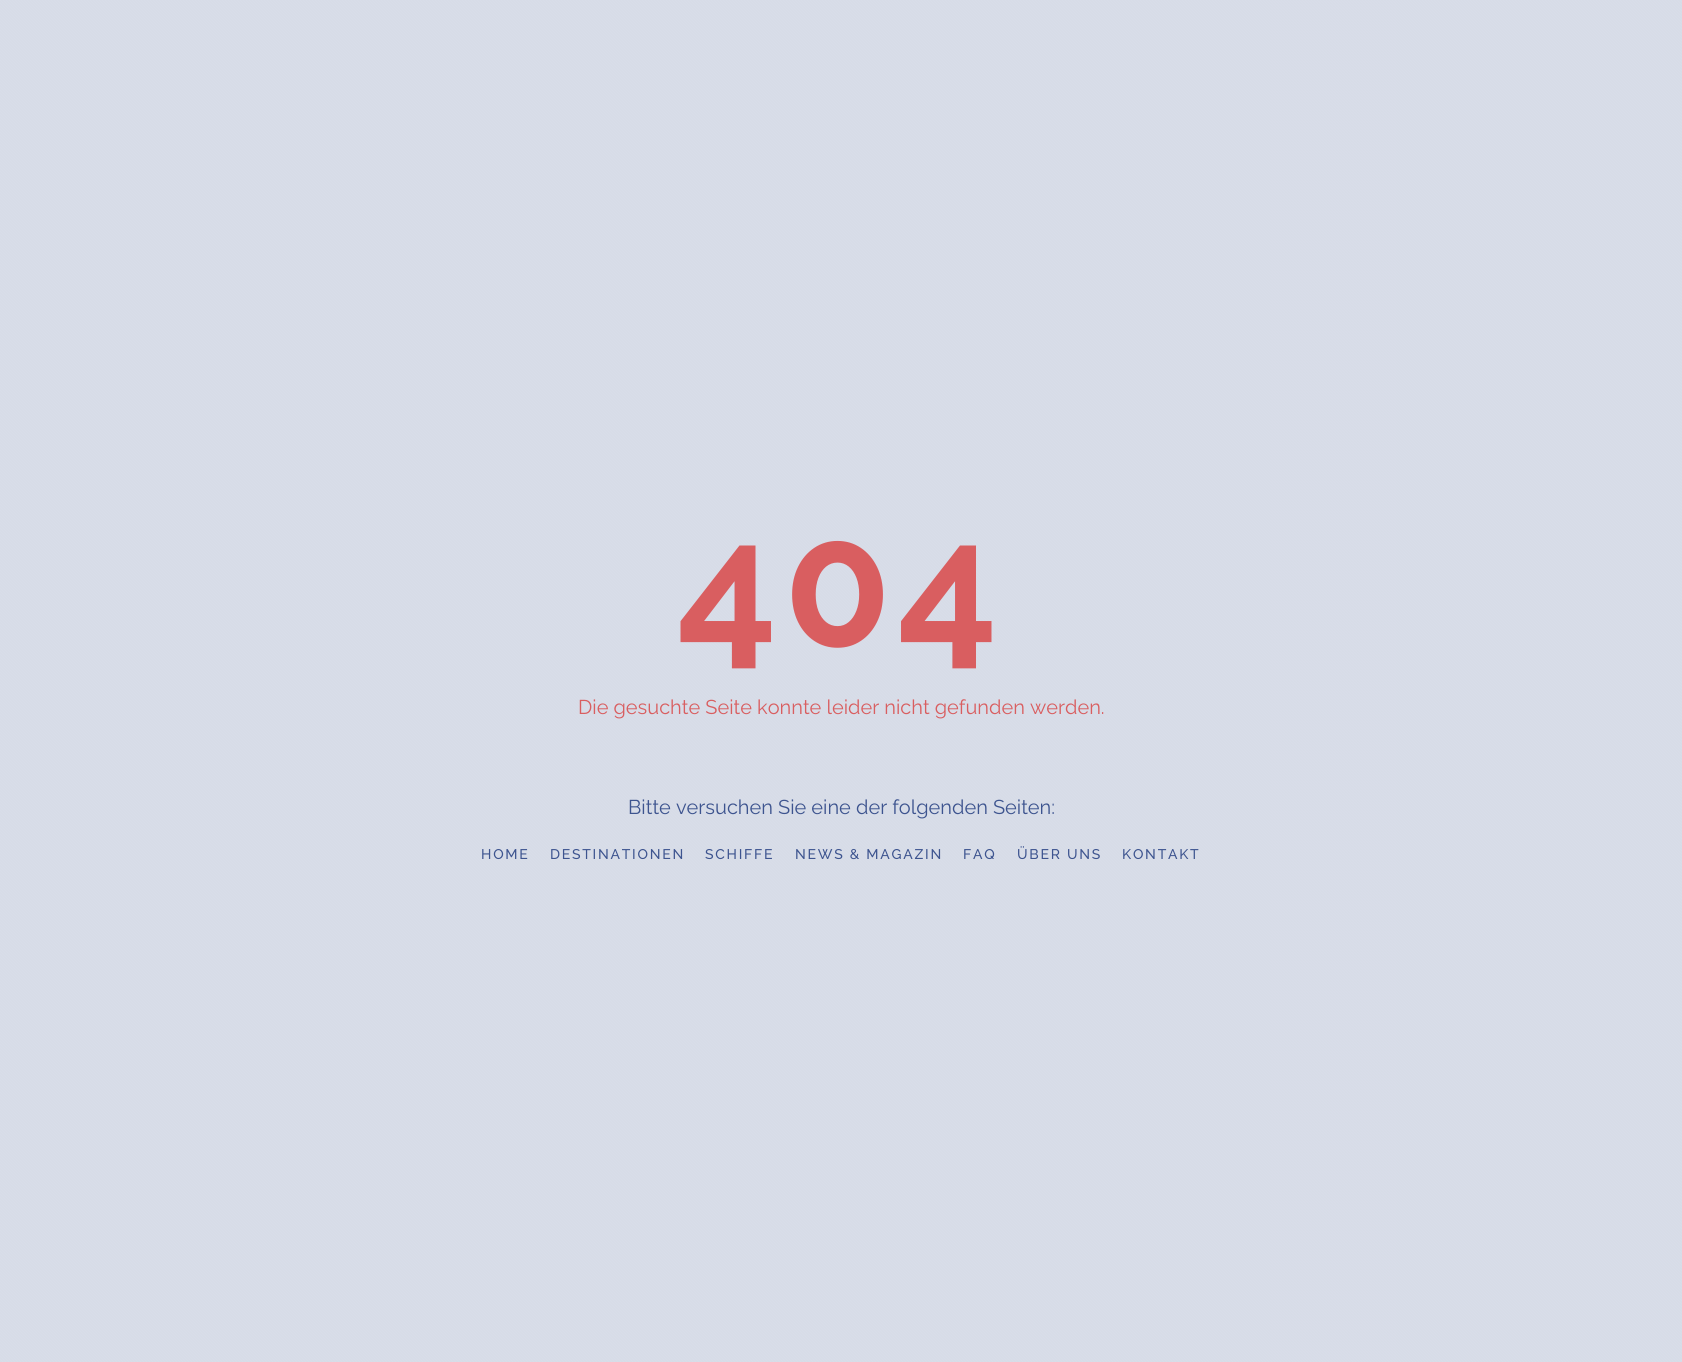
#include <cairo.h>
#include <math.h>
#include <stddef.h>


static void spaced_text(cairo_t *cr, double x, double y, const char *s, double letter, double word) {
    cairo_move_to(cr, x, y);
    while (*s) {
        char ch[5] = {0};
        int n = 0;
        do ch[n++] = *s++; while ((*s & 0xC0) == 0x80);
        cairo_show_text(cr, ch);
        cairo_rel_move_to(cr, letter + word * (*ch == ' '), 0);
    }
}

static void picture(cairo_t *cr, const char *path, double x, double y, double w, double h) {
    cairo_surface_t *image = cairo_image_surface_create_from_png(path);
    cairo_save(cr);
    cairo_set_source_surface(cr, image, x, y);
    cairo_rectangle(cr, x, y, w, h);
    cairo_fill(cr);
    cairo_restore(cr);
    cairo_surface_destroy(image);
}

int main(void) {
    cairo_surface_t *surface = cairo_image_surface_create(CAIRO_FORMAT_RGB24, 1682, 1362);
    cairo_t *cr = cairo_create(surface);
    cairo_font_options_t *options = cairo_font_options_create();
    cairo_font_options_set_hint_metrics(options, CAIRO_HINT_METRICS_OFF);
    cairo_font_options_set_hint_style(options, CAIRO_HINT_STYLE_NONE);
    cairo_set_font_options(cr, options);
    cairo_set_miter_limit(cr, 4);
    cairo_set_source_rgb(cr, 0.847, 0.867, 0.914);
    cairo_paint(cr);
    picture(cr, "img1.png", 0, 0, 1682, 1362);
    cairo_select_font_face(cr, "Raleway Thin", CAIRO_FONT_SLANT_NORMAL, CAIRO_FONT_WEIGHT_NORMAL);
    cairo_set_font_size(cr, 176);
    cairo_set_source_rgb(cr, 0.851, 0.369, 0.376);
    spaced_text(cr, 677, 646, "404", 6, 0);
    cairo_select_font_face(cr, "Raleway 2 Thin", CAIRO_FONT_SLANT_NORMAL, CAIRO_FONT_WEIGHT_NORMAL);
    cairo_set_font_size(cr, 20);
    cairo_move_to(cr, 578, 714);
    cairo_show_text(cr, "Die gesuchte Seite konnte leider nicht gefunden werden.");
    cairo_set_source_rgb(cr, 0.239, 0.329, 0.561);
    cairo_move_to(cr, 628, 814);
    cairo_show_text(cr, "Bitte versuchen Sie eine der folgenden Seiten:");
    cairo_select_font_face(cr, "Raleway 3 Thin", CAIRO_FONT_SLANT_NORMAL, CAIRO_FONT_WEIGHT_NORMAL);
    cairo_set_font_size(cr, 14);
    spaced_text(cr, 481, 859, "HOME", 1.75, 0);
    spaced_text(cr, 550, 859, "DESTINATIONEN", 1.75, 0);
    spaced_text(cr, 705, 859, "SCHIFFE", 1.75, 0);
    spaced_text(cr, 795, 859, "NEWS & MAGAZIN", 1.75, 0);
    spaced_text(cr, 963, 859, "FAQ", 1.75, 0);
    spaced_text(cr, 1017, 859, "ÜBER UNS", 1.75, 0);
    spaced_text(cr, 1122, 859, "KONTAKT", 1.75, 0);
    cairo_surface_write_to_png(surface, "page.png");
    cairo_font_options_destroy(options);
    cairo_destroy(cr);
    cairo_surface_destroy(surface);
    return 0;
}
